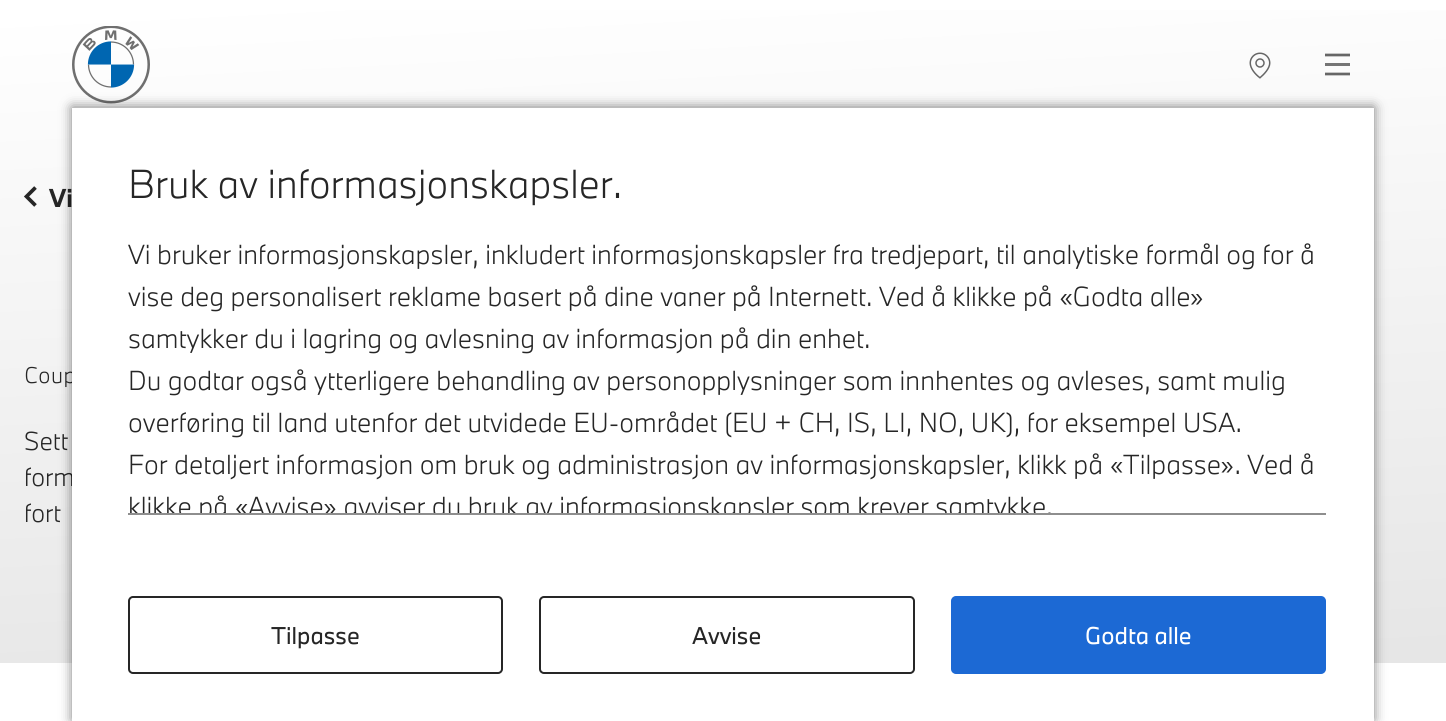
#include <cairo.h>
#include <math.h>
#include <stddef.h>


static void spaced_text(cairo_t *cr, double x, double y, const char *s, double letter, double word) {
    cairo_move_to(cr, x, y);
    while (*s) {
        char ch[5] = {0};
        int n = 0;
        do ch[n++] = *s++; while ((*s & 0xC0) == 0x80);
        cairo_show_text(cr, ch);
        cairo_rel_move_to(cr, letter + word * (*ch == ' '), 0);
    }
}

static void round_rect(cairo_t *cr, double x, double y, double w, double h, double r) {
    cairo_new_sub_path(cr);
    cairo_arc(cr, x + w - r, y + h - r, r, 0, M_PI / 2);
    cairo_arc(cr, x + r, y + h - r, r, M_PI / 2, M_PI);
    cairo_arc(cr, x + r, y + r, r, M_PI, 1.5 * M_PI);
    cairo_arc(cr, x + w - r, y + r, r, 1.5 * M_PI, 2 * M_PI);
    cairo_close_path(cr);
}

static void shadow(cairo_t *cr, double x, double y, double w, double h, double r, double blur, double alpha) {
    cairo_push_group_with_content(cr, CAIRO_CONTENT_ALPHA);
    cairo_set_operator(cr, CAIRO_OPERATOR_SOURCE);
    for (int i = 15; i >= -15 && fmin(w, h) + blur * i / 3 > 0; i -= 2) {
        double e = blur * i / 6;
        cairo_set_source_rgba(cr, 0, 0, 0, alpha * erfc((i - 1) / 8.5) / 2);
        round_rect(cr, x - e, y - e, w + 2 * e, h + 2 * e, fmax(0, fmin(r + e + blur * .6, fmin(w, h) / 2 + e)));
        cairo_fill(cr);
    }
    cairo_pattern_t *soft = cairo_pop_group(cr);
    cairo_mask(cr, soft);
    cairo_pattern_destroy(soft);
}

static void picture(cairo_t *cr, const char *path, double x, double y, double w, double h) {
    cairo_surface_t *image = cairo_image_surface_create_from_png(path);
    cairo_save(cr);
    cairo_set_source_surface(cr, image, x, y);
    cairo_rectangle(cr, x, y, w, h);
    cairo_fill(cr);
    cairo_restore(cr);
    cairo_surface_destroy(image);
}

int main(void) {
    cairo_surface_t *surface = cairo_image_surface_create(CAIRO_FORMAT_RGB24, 1446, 721);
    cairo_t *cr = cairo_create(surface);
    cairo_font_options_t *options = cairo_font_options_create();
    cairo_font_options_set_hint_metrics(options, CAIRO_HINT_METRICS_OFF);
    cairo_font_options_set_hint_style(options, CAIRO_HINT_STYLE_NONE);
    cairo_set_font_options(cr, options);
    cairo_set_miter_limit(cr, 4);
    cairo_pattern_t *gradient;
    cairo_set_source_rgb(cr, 1, 1, 1);
    cairo_paint(cr);
    gradient = cairo_pattern_create_linear(742, 700, 704, -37);
    cairo_pattern_add_color_stop_rgba(gradient, 0.02, 0.902, 0.902, 0.902, 1);
    cairo_pattern_add_color_stop_rgba(gradient, 0.98, 1, 1, 1, 1);
    cairo_set_source(cr, gradient);
    cairo_pattern_destroy(gradient);
    cairo_rectangle(cr, 0, 10, 1446, 653);
    cairo_fill(cr);
    picture(cr, "img1.png", 72, 26, 78, 78);
    picture(cr, "img2.png", 1249, 52, 22, 27);
    cairo_save(cr);
    cairo_rectangle(cr, 1325, 53, 27, 24);
    cairo_clip(cr);
    cairo_new_path(cr);
    cairo_move_to(cr, 1324.5, 55);
    cairo_line_to(cr, 1350, 55);
    cairo_set_source_rgb(cr, 0.4, 0.4, 0.4);
    cairo_set_line_width(cr, 2.7);
    cairo_stroke(cr);
    cairo_restore(cr);
    cairo_set_source_rgb(cr, 0.459, 0.459, 0.459);
    cairo_rectangle(cr, 1325, 63, 25, 3);
    cairo_fill(cr);
    cairo_save(cr);
    cairo_rectangle(cr, 1325, 53, 27, 24);
    cairo_clip(cr);
    cairo_new_path(cr);
    cairo_move_to(cr, 1324.5, 74);
    cairo_line_to(cr, 1350, 74);
    cairo_set_source_rgb(cr, 0.4, 0.4, 0.4);
    cairo_set_line_width(cr, 2.7);
    cairo_stroke(cr);
    cairo_restore(cr);
    cairo_new_path(cr);
    cairo_move_to(cr, 35.5, 205.5);
    cairo_line_to(cr, 26.5, 196.5);
    cairo_line_to(cr, 35.5, 187.5);
    cairo_set_source_rgb(cr, 0.149, 0.149, 0.149);
    cairo_set_line_width(cr, 3.7);
    cairo_stroke(cr);
    cairo_select_font_face(cr, "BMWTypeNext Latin", CAIRO_FONT_SLANT_NORMAL, CAIRO_FONT_WEIGHT_BOLD);
    cairo_set_font_size(cr, 24);
    cairo_move_to(cr, 49, 207);
    cairo_show_text(cr, "Vi");
    cairo_select_font_face(cr, "BMWTypeNext Latin Light", CAIRO_FONT_SLANT_NORMAL, CAIRO_FONT_WEIGHT_NORMAL);
    cairo_set_font_size(cr, 21);
    spaced_text(cr, 24, 383, "Coup", 0.5, 0);
    cairo_set_font_size(cr, 24);
    cairo_move_to(cr, 24, 450);
    cairo_show_text(cr, "Sett");
    cairo_move_to(cr, 24, 486);
    cairo_show_text(cr, "form");
    cairo_move_to(cr, 24, 522);
    cairo_show_text(cr, "fort");
    cairo_set_source_rgb(cr, 0, 0, 0);
    shadow(cr, 72, 107, 1302, 613, 0, 6, 0.5);
    cairo_set_source_rgb(cr, 1, 1, 1);
    cairo_rectangle(cr, 72, 108, 1302, 613);
    cairo_fill(cr);
    cairo_select_font_face(cr, "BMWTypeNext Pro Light", CAIRO_FONT_SLANT_NORMAL, CAIRO_FONT_WEIGHT_NORMAL);
    cairo_set_font_size(cr, 37.5);
    cairo_set_source_rgb(cr, 0.149, 0.149, 0.149);
    cairo_move_to(cr, 128, 198);
    cairo_show_text(cr, "Bruk av informasjonskapsler.");
    cairo_set_font_size(cr, 25.5);
    cairo_move_to(cr, 128, 264);
    cairo_show_text(cr, "Vi bruker informasjonskapsler, inkludert informasjonskapsler fra tredjepart, til analytiske formål og for å");
    cairo_move_to(cr, 128, 306);
    cairo_show_text(cr, "vise deg personalisert reklame basert på dine vaner på Internett. Ved å klikke på «Godta alle»");
    cairo_move_to(cr, 128, 348);
    cairo_show_text(cr, "samtykker du i lagring og avlesning av informasjon på din enhet.");
    cairo_move_to(cr, 128, 390);
    cairo_show_text(cr, "Du godtar også ytterligere behandling av personopplysninger som innhentes og avleses, samt mulig");
    cairo_move_to(cr, 128, 432);
    cairo_show_text(cr, "overføring til land utenfor det utvidede EU-området (EU + CH, IS, LI, NO, UK), for eksempel USA.");
    cairo_move_to(cr, 128, 474);
    cairo_show_text(cr, "For detaljert informasjon om bruk og administrasjon av informasjonskapsler, klikk på «Tilpasse». Ved å");
    cairo_save(cr);
    cairo_rectangle(cr, 120, 234, 1206, 279);
    cairo_clip(cr);
    cairo_move_to(cr, 128, 516);
    cairo_show_text(cr, "klikke på «Avvise» avviser du bruk av informasjonskapsler som krever samtykke.");
    cairo_restore(cr);
    cairo_set_source_rgb(cr, 0.557, 0.557, 0.557);
    cairo_rectangle(cr, 128, 513, 1198, 2);
    cairo_fill(cr);
    round_rect(cr, 129, 597, 373, 76, 4);
    cairo_set_source_rgb(cr, 0.149, 0.149, 0.149);
    cairo_set_line_width(cr, 2);
    cairo_stroke(cr);
    cairo_select_font_face(cr, "BMWTypeNext Pro", CAIRO_FONT_SLANT_NORMAL, CAIRO_FONT_WEIGHT_NORMAL);
    cairo_set_font_size(cr, 22.5);
    cairo_move_to(cr, 271, 644);
    cairo_show_text(cr, "Tilpasse");
    round_rect(cr, 540, 597, 374, 76, 4);
    cairo_stroke(cr);
    cairo_move_to(cr, 692, 644);
    cairo_show_text(cr, "Avvise");
    cairo_set_source_rgb(cr, 0.11, 0.412, 0.831);
    round_rect(cr, 952, 597, 373, 76, 4);
    cairo_fill_preserve(cr);
    cairo_stroke(cr);
    cairo_set_source_rgb(cr, 1, 1, 1);
    cairo_move_to(cr, 1085, 644);
    cairo_show_text(cr, "Godta alle");
    cairo_surface_write_to_png(surface, "page.png");
    cairo_font_options_destroy(options);
    cairo_destroy(cr);
    cairo_surface_destroy(surface);
    return 0;
}
